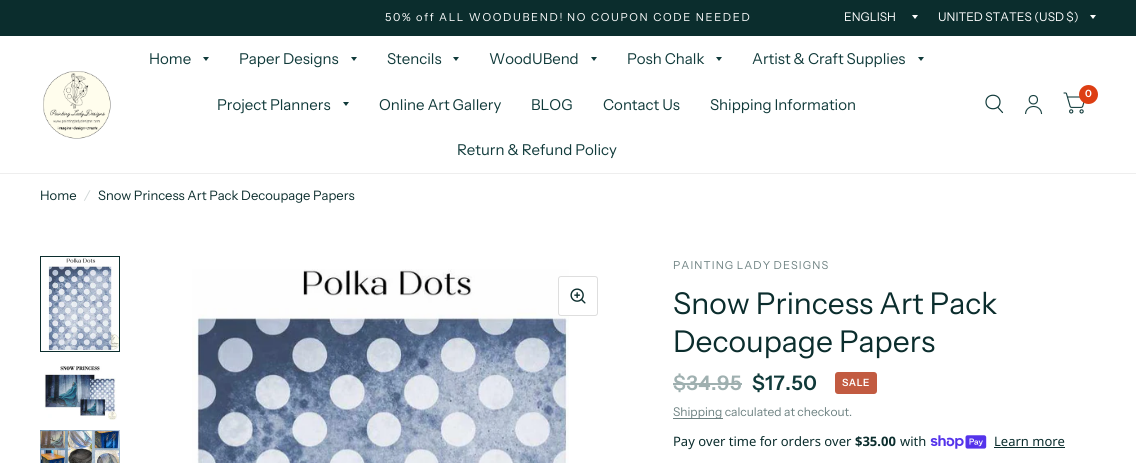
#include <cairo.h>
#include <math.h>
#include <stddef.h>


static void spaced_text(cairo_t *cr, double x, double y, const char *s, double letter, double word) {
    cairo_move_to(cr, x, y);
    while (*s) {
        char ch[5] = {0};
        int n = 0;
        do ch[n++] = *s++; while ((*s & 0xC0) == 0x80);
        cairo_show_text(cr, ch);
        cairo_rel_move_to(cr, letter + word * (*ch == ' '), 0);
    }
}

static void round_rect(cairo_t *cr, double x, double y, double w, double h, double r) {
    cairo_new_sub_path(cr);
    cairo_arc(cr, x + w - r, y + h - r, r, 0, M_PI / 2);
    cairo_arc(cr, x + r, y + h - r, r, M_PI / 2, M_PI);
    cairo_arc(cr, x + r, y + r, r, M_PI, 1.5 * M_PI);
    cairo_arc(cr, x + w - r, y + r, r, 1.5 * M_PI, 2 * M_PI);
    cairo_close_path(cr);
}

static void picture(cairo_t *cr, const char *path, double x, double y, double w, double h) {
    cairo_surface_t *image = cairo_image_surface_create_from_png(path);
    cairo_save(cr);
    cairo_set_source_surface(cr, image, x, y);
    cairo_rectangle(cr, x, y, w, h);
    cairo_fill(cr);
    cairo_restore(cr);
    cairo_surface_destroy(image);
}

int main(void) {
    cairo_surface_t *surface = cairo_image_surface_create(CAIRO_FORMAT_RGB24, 1136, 463);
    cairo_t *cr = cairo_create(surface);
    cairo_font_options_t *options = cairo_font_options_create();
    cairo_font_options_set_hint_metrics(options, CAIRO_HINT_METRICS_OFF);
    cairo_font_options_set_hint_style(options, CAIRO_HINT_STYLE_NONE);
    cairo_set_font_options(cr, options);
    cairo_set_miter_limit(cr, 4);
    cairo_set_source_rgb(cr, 1, 1, 1);
    cairo_paint(cr);
    cairo_set_source_rgb(cr, 0.043, 0.176, 0.176);
    cairo_rectangle(cr, 0, 0, 1136, 36);
    cairo_fill(cr);
    cairo_select_font_face(cr, "Instrument Sans", CAIRO_FONT_SLANT_NORMAL, CAIRO_FONT_WEIGHT_NORMAL);
    cairo_set_font_size(cr, 11);
    cairo_set_source_rgb(cr, 1, 1, 1);
    spaced_text(cr, 385, 21, "50% off ALL WOODUBEND!", 1.65, 0);
    spaced_text(cr, 567, 21, "NO COUPON CODE NEEDED", 1.65, 0);
    cairo_set_font_size(cr, 12);
    cairo_move_to(cr, 844, 21);
    cairo_show_text(cr, "ENGLISH");
    cairo_new_path(cr);
    cairo_move_to(cr, 912, 15);
    cairo_line_to(cr, 918, 15);
    cairo_line_to(cr, 915, 19);
    cairo_close_path(cr);
    cairo_fill(cr);
    cairo_move_to(cr, 938, 21);
    cairo_show_text(cr, "UNITED STATES (USD $)");
    cairo_new_path(cr);
    cairo_move_to(cr, 1090, 15);
    cairo_line_to(cr, 1096, 15);
    cairo_line_to(cr, 1093, 19);
    cairo_close_path(cr);
    cairo_fill(cr);
    cairo_set_source_rgb(cr, 0.933, 0.933, 0.933);
    cairo_rectangle(cr, 0, 173, 1136, 1);
    cairo_fill(cr);
    picture(cr, "img1.png", 43, 71, 68, 68);
    cairo_set_font_size(cr, 15);
    cairo_set_source_rgb(cr, 0.063, 0.227, 0.227);
    cairo_move_to(cr, 149, 64);
    cairo_show_text(cr, "Home");
    cairo_new_path(cr);
    cairo_move_to(cr, 203, 57);
    cairo_line_to(cr, 209, 57);
    cairo_line_to(cr, 206, 61);
    cairo_close_path(cr);
    cairo_fill(cr);
    cairo_move_to(cr, 239, 64);
    cairo_show_text(cr, "Paper Designs");
    cairo_new_path(cr);
    cairo_move_to(cr, 351, 57);
    cairo_line_to(cr, 357, 57);
    cairo_line_to(cr, 354, 61);
    cairo_close_path(cr);
    cairo_fill(cr);
    cairo_move_to(cr, 387, 64);
    cairo_show_text(cr, "Stencils");
    cairo_new_path(cr);
    cairo_move_to(cr, 453, 57);
    cairo_line_to(cr, 459, 57);
    cairo_line_to(cr, 456, 61);
    cairo_close_path(cr);
    cairo_fill(cr);
    cairo_move_to(cr, 489, 64);
    cairo_show_text(cr, "WoodUBend");
    cairo_new_path(cr);
    cairo_move_to(cr, 591, 57);
    cairo_line_to(cr, 597, 57);
    cairo_line_to(cr, 594, 61);
    cairo_close_path(cr);
    cairo_fill(cr);
    cairo_move_to(cr, 627, 64);
    cairo_show_text(cr, "Posh Chalk");
    cairo_new_path(cr);
    cairo_move_to(cr, 716, 57);
    cairo_line_to(cr, 722, 57);
    cairo_line_to(cr, 719, 61);
    cairo_close_path(cr);
    cairo_fill(cr);
    cairo_move_to(cr, 752, 64);
    cairo_show_text(cr, "Artist & Craft Supplies");
    cairo_new_path(cr);
    cairo_move_to(cr, 918, 57);
    cairo_line_to(cr, 924, 57);
    cairo_line_to(cr, 921, 61);
    cairo_close_path(cr);
    cairo_fill(cr);
    cairo_move_to(cr, 217, 110);
    cairo_show_text(cr, "Project Planners");
    cairo_new_path(cr);
    cairo_move_to(cr, 343, 102);
    cairo_line_to(cr, 349, 102);
    cairo_line_to(cr, 346, 106);
    cairo_close_path(cr);
    cairo_fill(cr);
    cairo_move_to(cr, 379, 110);
    cairo_show_text(cr, "Online Art Gallery");
    cairo_move_to(cr, 531, 110);
    cairo_show_text(cr, "BLOG");
    cairo_move_to(cr, 603, 110);
    cairo_show_text(cr, "Contact Us");
    cairo_move_to(cr, 710, 110);
    cairo_show_text(cr, "Shipping Information");
    cairo_move_to(cr, 457, 155);
    cairo_show_text(cr, "Return & Refund Policy");
    cairo_new_path(cr);
    cairo_move_to(cr, 998, 107.5);
    cairo_line_to(cr, 1002.5, 112.5);
    cairo_move_to(cr, 1000, 102);
    cairo_curve_to(cr, 1000, 111, 986, 111, 986, 102);
    cairo_curve_to(cr, 986, 93, 1000, 93, 1000, 102);
    cairo_close_path(cr);
    cairo_set_line_width(cr, 1.2);
    cairo_set_line_cap(cr, CAIRO_LINE_CAP_ROUND);
    cairo_set_line_join(cr, CAIRO_LINE_JOIN_ROUND);
    cairo_stroke(cr);
    picture(cr, "img2.png", 1025, 94, 18, 21);
    picture(cr, "img3.png", 1063, 92, 22, 22);
    cairo_set_source_rgb(cr, 0.867, 0.243, 0.078);
    cairo_arc(cr, 1088.5, 94.5, 9.5, 0, 2 * M_PI);
    cairo_fill(cr);
    cairo_select_font_face(cr, "Instrument Sans SemiBold", CAIRO_FONT_SLANT_NORMAL, CAIRO_FONT_WEIGHT_NORMAL);
    cairo_set_font_size(cr, 10);
    cairo_set_source_rgb(cr, 1, 1, 1);
    cairo_move_to(cr, 1085, 97);
    cairo_show_text(cr, "0");
    cairo_select_font_face(cr, "Instrument Sans", CAIRO_FONT_SLANT_NORMAL, CAIRO_FONT_WEIGHT_NORMAL);
    cairo_set_font_size(cr, 13);
    cairo_set_source_rgb(cr, 0.043, 0.176, 0.176);
    cairo_move_to(cr, 40, 200);
    cairo_show_text(cr, "Home");
    cairo_select_font_face(cr, "Instrument Sans", CAIRO_FONT_SLANT_ITALIC, CAIRO_FONT_WEIGHT_NORMAL);
    cairo_set_source_rgb(cr, 0.808, 0.835, 0.835);
    cairo_move_to(cr, 84, 200);
    cairo_show_text(cr, "/");
    cairo_select_font_face(cr, "Instrument Sans", CAIRO_FONT_SLANT_NORMAL, CAIRO_FONT_WEIGHT_NORMAL);
    cairo_set_source_rgb(cr, 0.043, 0.176, 0.176);
    cairo_move_to(cr, 98, 200);
    cairo_show_text(cr, "Snow Princess Art Pack Decoupage Papers");
    picture(cr, "img4.png", 48, 258, 71, 93);
    cairo_rectangle(cr, 40.5, 256.5, 79, 95);
    cairo_set_line_width(cr, 1);
    cairo_set_line_cap(cr, CAIRO_LINE_CAP_BUTT);
    cairo_set_line_join(cr, CAIRO_LINE_JOIN_MITER);
    cairo_stroke(cr);
    picture(cr, "img5.png", 44, 366, 73, 54);
    picture(cr, "img6.png", 40, 430, 80, 33);
    picture(cr, "img7.png", 192, 269, 377, 194);
    cairo_set_source_rgb(cr, 1, 1, 1);
    round_rect(cr, 558.5, 276.5, 39, 39, 2.5);
    cairo_fill_preserve(cr);
    cairo_set_source_rgb(cr, 0.871, 0.871, 0.871);
    cairo_stroke(cr);
    picture(cr, "img8.png", 570, 288, 16, 16);
    cairo_set_font_size(cr, 11);
    cairo_set_source_rgb(cr, 0.427, 0.506, 0.506);
    spaced_text(cr, 673, 269, "PAINTING LADY DESIGNS", 1.1, -1);
    cairo_set_font_size(cr, 30);
    cairo_set_source_rgb(cr, 0.043, 0.176, 0.176);
    cairo_move_to(cr, 673, 314);
    cairo_show_text(cr, "Snow Princess Art Pack");
    cairo_move_to(cr, 673, 352);
    cairo_show_text(cr, "Decoupage Papers");
    cairo_select_font_face(cr, "Instrument Sans SemiBold", CAIRO_FONT_SLANT_NORMAL, CAIRO_FONT_WEIGHT_NORMAL);
    cairo_set_font_size(cr, 20);
    cairo_set_source_rgb(cr, 0.624, 0.69, 0.69);
    spaced_text(cr, 673, 390, "$34.95", 0.5, 0);
    cairo_rectangle(cr, 673, 383, 69, 2);
    cairo_fill(cr);
    cairo_set_source_rgb(cr, 0.063, 0.227, 0.227);
    spaced_text(cr, 752, 390, "$17.50", 0.5, 0);
    cairo_set_source_rgb(cr, 0.761, 0.357, 0.255);
    round_rect(cr, 835, 372, 42, 22, 3);
    cairo_fill(cr);
    cairo_set_font_size(cr, 10);
    cairo_set_source_rgb(cr, 1, 1, 1);
    spaced_text(cr, 842, 386, "SALE", 0.5, 0);
    cairo_set_source_rgb(cr, 0.427, 0.506, 0.506);
    cairo_rectangle(cr, 673, 418, 50, 1);
    cairo_fill(cr);
    cairo_select_font_face(cr, "Instrument Sans", CAIRO_FONT_SLANT_NORMAL, CAIRO_FONT_WEIGHT_NORMAL);
    cairo_set_font_size(cr, 12);
    cairo_move_to(cr, 673, 416);
    cairo_show_text(cr, "Shipping calculated at checkout.");
    cairo_select_font_face(cr, "Noto Sans", CAIRO_FONT_SLANT_NORMAL, CAIRO_FONT_WEIGHT_NORMAL);
    cairo_set_font_size(cr, 13);
    cairo_set_source_rgb(cr, 0.043, 0.176, 0.176);
    cairo_move_to(cr, 673, 446);
    cairo_show_text(cr, "Pay over time for orders over");
    cairo_select_font_face(cr, "Noto Sans", CAIRO_FONT_SLANT_NORMAL, CAIRO_FONT_WEIGHT_BOLD);
    cairo_move_to(cr, 855, 446);
    cairo_show_text(cr, "$35.00");
    cairo_select_font_face(cr, "Noto Sans", CAIRO_FONT_SLANT_NORMAL, CAIRO_FONT_WEIGHT_NORMAL);
    cairo_move_to(cr, 900, 446);
    cairo_show_text(cr, "with");
    picture(cr, "img9.png", 930, 435, 57, 14);
    cairo_move_to(cr, 994, 446);
    cairo_show_text(cr, "Learn more");
    cairo_rectangle(cr, 994, 447, 71, 1);
    cairo_fill(cr);
    cairo_surface_write_to_png(surface, "page.png");
    cairo_font_options_destroy(options);
    cairo_destroy(cr);
    cairo_surface_destroy(surface);
    return 0;
}
